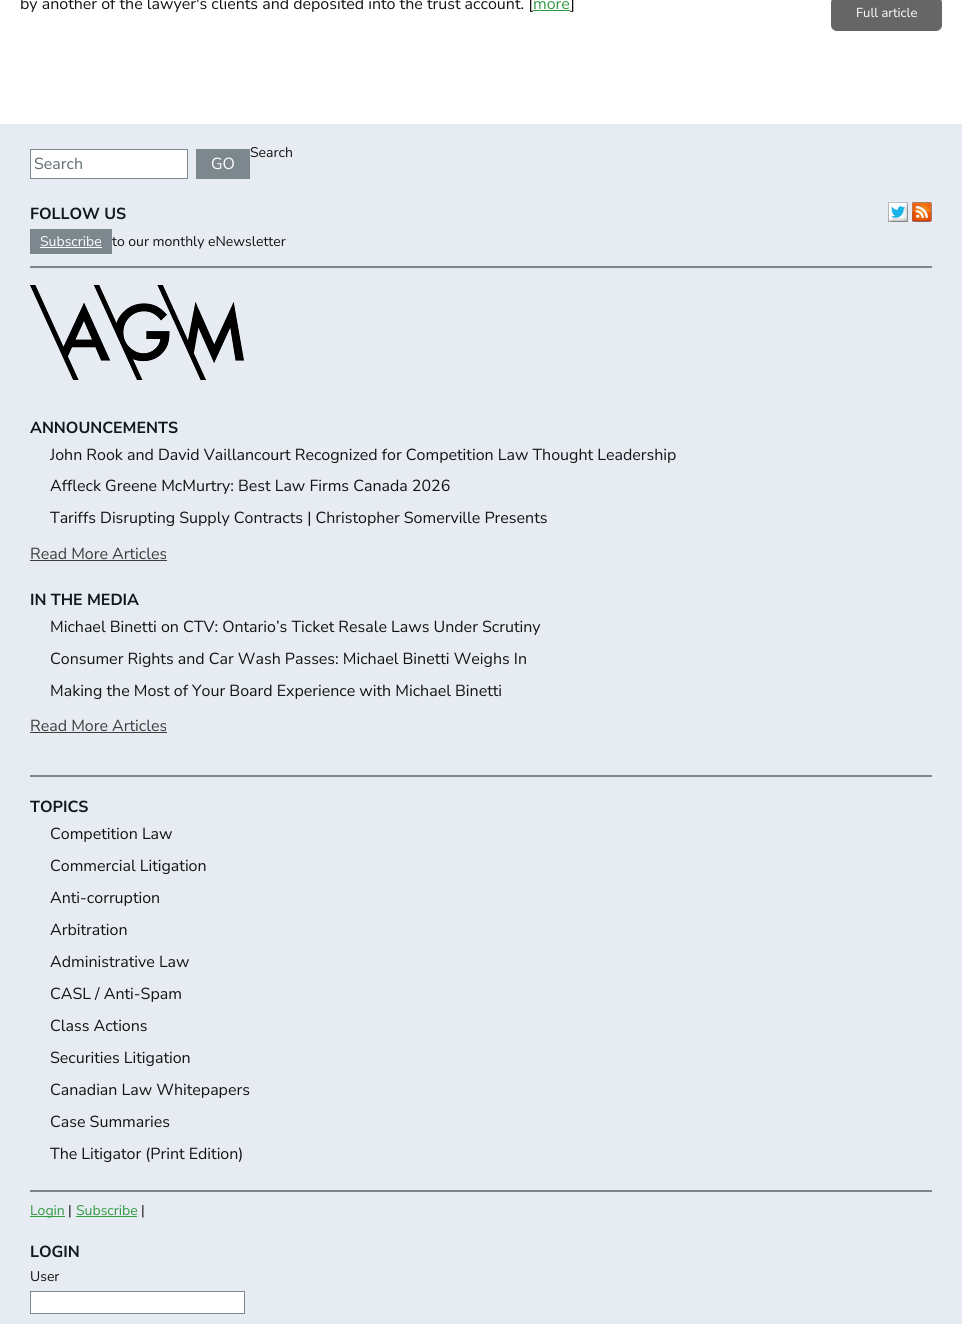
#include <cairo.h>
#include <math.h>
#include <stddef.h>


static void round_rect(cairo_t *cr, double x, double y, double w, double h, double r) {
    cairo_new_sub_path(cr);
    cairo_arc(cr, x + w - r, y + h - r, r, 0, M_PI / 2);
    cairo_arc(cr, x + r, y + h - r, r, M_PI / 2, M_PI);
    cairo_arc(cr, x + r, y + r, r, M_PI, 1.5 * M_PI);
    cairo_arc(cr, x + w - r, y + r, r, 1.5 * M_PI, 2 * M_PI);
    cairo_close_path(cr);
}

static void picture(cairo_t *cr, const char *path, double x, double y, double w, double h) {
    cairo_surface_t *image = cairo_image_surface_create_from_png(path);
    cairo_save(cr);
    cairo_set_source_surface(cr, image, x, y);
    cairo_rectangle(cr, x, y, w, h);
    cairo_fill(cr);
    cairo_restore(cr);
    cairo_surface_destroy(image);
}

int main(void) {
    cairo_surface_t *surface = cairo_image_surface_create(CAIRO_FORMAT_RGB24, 962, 1324);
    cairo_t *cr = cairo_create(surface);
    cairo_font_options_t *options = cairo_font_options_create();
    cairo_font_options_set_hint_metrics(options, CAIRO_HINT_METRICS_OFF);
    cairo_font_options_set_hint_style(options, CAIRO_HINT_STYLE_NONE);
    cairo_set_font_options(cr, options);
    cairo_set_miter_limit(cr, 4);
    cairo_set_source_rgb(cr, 1, 1, 1);
    cairo_paint(cr);
    cairo_select_font_face(cr, "Nunito Sans", CAIRO_FONT_SLANT_NORMAL, CAIRO_FONT_WEIGHT_NORMAL);
    cairo_set_font_size(cr, 16);
    cairo_set_source_rgb(cr, 0.075, 0.075, 0.075);
    cairo_move_to(cr, 20, 9);
    cairo_show_text(cr, "by another of the lawyer's clients and deposited into the trust account. [");
    cairo_set_source_rgb(cr, 0.192, 0.608, 0.259);
    cairo_move_to(cr, 533, 9);
    cairo_show_text(cr, "more");
    cairo_set_source_rgb(cr, 0.075, 0.075, 0.075);
    cairo_move_to(cr, 570, 9);
    cairo_show_text(cr, "]");
    cairo_set_source_rgb(cr, 0.192, 0.608, 0.259);
    cairo_rectangle(cr, 533, 10, 37, 1);
    cairo_fill(cr);
    cairo_set_source_rgb(cr, 0.4, 0.4, 0.4);
    round_rect(cr, 831.5, -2.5, 110, 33, 5.5);
    cairo_fill_preserve(cr);
    cairo_set_line_width(cr, 1);
    cairo_stroke(cr);
    cairo_set_font_size(cr, 13);
    cairo_set_source_rgb(cr, 1, 1, 1);
    cairo_move_to(cr, 856, 17);
    cairo_show_text(cr, "Full article");
    cairo_set_source_rgb(cr, 0.906, 0.925, 0.949);
    cairo_rectangle(cr, 0, 124, 962, 1200);
    cairo_fill(cr);
    cairo_set_font_size(cr, 14);
    cairo_set_source_rgb(cr, 0.075, 0.075, 0.075);
    cairo_move_to(cr, 250, 157);
    cairo_show_text(cr, "Search");
    cairo_set_source_rgb(cr, 1, 1, 1);
    cairo_rectangle(cr, 30.5, 149.5, 157, 29);
    cairo_fill_preserve(cr);
    cairo_set_source_rgb(cr, 0.486, 0.529, 0.557);
    cairo_stroke(cr);
    cairo_set_font_size(cr, 16);
    cairo_set_source_rgb(cr, 0.369, 0.416, 0.443);
    cairo_move_to(cr, 34, 169);
    cairo_show_text(cr, "Search");
    cairo_set_source_rgb(cr, 0.486, 0.529, 0.557);
    cairo_rectangle(cr, 196, 149, 54, 30);
    cairo_fill(cr);
    cairo_set_source_rgb(cr, 1, 1, 1);
    cairo_move_to(cr, 211, 169);
    cairo_show_text(cr, "GO");
    cairo_set_source_rgb(cr, 0.486, 0.529, 0.557);
    cairo_rectangle(cr, 30, 266, 902, 2);
    cairo_fill(cr);
    cairo_select_font_face(cr, "Nunito Sans", CAIRO_FONT_SLANT_NORMAL, CAIRO_FONT_WEIGHT_BOLD);
    cairo_set_source_rgb(cr, 0.063, 0.094, 0.125);
    cairo_move_to(cr, 30, 219);
    cairo_show_text(cr, "FOLLOW US");
    picture(cr, "img1.png", 888, 202, 20, 20);
    picture(cr, "img2.png", 912, 202, 20, 20);
    cairo_set_source_rgb(cr, 0.486, 0.529, 0.557);
    cairo_rectangle(cr, 30, 229, 82, 25);
    cairo_fill(cr);
    cairo_select_font_face(cr, "Nunito Sans", CAIRO_FONT_SLANT_NORMAL, CAIRO_FONT_WEIGHT_NORMAL);
    cairo_set_font_size(cr, 14);
    cairo_set_source_rgb(cr, 1, 1, 1);
    cairo_move_to(cr, 40, 246);
    cairo_show_text(cr, "Subscribe");
    cairo_rectangle(cr, 40, 247, 62, 1);
    cairo_fill(cr);
    cairo_set_source_rgb(cr, 0.075, 0.075, 0.075);
    cairo_move_to(cr, 112, 246);
    cairo_show_text(cr, "to our monthly eNewsletter");
    cairo_set_source_rgb(cr, 0.486, 0.529, 0.557);
    cairo_rectangle(cr, 30, 775, 902, 2);
    cairo_fill(cr);
    picture(cr, "img3.png", 30, 285, 214, 95);
    cairo_select_font_face(cr, "Nunito Sans", CAIRO_FONT_SLANT_NORMAL, CAIRO_FONT_WEIGHT_BOLD);
    cairo_set_font_size(cr, 16);
    cairo_set_source_rgb(cr, 0.063, 0.094, 0.125);
    cairo_move_to(cr, 30, 433);
    cairo_show_text(cr, "ANNOUNCEMENTS");
    cairo_select_font_face(cr, "Nunito Sans", CAIRO_FONT_SLANT_NORMAL, CAIRO_FONT_WEIGHT_NORMAL);
    cairo_set_source_rgb(cr, 0.075, 0.075, 0.075);
    cairo_move_to(cr, 50, 460);
    cairo_show_text(cr, "John Rook and David Vaillancourt Recognized for Competition Law Thought Leadership");
    cairo_move_to(cr, 50, 491);
    cairo_show_text(cr, "Affleck Greene McMurtry: Best Law Firms Canada 2026");
    cairo_move_to(cr, 50, 523);
    cairo_show_text(cr, "Tariffs Disrupting Supply Contracts | Christopher Somerville Presents");
    cairo_set_source_rgb(cr, 0.239, 0.239, 0.239);
    cairo_move_to(cr, 30, 559);
    cairo_show_text(cr, "Read More Articles");
    cairo_rectangle(cr, 30, 560, 137, 1);
    cairo_fill(cr);
    cairo_select_font_face(cr, "Nunito Sans", CAIRO_FONT_SLANT_NORMAL, CAIRO_FONT_WEIGHT_BOLD);
    cairo_set_source_rgb(cr, 0.063, 0.094, 0.125);
    cairo_move_to(cr, 30, 605);
    cairo_show_text(cr, "IN THE MEDIA");
    cairo_select_font_face(cr, "Nunito Sans", CAIRO_FONT_SLANT_NORMAL, CAIRO_FONT_WEIGHT_NORMAL);
    cairo_set_source_rgb(cr, 0.075, 0.075, 0.075);
    cairo_move_to(cr, 50, 632);
    cairo_show_text(cr, "Michael Binetti on CTV: Ontario’s Ticket Resale Laws Under Scrutiny");
    cairo_move_to(cr, 50, 664);
    cairo_show_text(cr, "Consumer Rights and Car Wash Passes: Michael Binetti Weighs In");
    cairo_move_to(cr, 50, 696);
    cairo_show_text(cr, "Making the Most of Your Board Experience with Michael Binetti");
    cairo_set_source_rgb(cr, 0.239, 0.239, 0.239);
    cairo_move_to(cr, 30, 731);
    cairo_show_text(cr, "Read More Articles");
    cairo_rectangle(cr, 30, 732, 137, 1);
    cairo_fill(cr);
    cairo_set_source_rgb(cr, 0.486, 0.529, 0.557);
    cairo_rectangle(cr, 30, 1190, 902, 2);
    cairo_fill(cr);
    cairo_select_font_face(cr, "Nunito Sans", CAIRO_FONT_SLANT_NORMAL, CAIRO_FONT_WEIGHT_BOLD);
    cairo_set_source_rgb(cr, 0.063, 0.094, 0.125);
    cairo_move_to(cr, 30, 812);
    cairo_show_text(cr, "TOPICS");
    cairo_select_font_face(cr, "Nunito Sans", CAIRO_FONT_SLANT_NORMAL, CAIRO_FONT_WEIGHT_NORMAL);
    cairo_set_source_rgb(cr, 0.075, 0.075, 0.075);
    cairo_move_to(cr, 50, 839);
    cairo_show_text(cr, "Competition Law");
    cairo_move_to(cr, 50, 871);
    cairo_show_text(cr, "Commercial Litigation");
    cairo_move_to(cr, 50, 903);
    cairo_show_text(cr, "Anti-corruption");
    cairo_move_to(cr, 50, 935);
    cairo_show_text(cr, "Arbitration");
    cairo_move_to(cr, 50, 967);
    cairo_show_text(cr, "Administrative Law");
    cairo_move_to(cr, 50, 999);
    cairo_show_text(cr, "CASL / Anti-Spam");
    cairo_move_to(cr, 50, 1031);
    cairo_show_text(cr, "Class Actions");
    cairo_move_to(cr, 50, 1063);
    cairo_show_text(cr, "Securities Litigation");
    cairo_move_to(cr, 50, 1095);
    cairo_show_text(cr, "Canadian Law Whitepapers");
    cairo_move_to(cr, 50, 1127);
    cairo_show_text(cr, "Case Summaries");
    cairo_move_to(cr, 50, 1159);
    cairo_show_text(cr, "The Litigator (Print Edition)");
    cairo_set_source_rgb(cr, 0.192, 0.608, 0.259);
    cairo_rectangle(cr, 30, 1216, 35, 1);
    cairo_fill(cr);
    cairo_set_font_size(cr, 14);
    cairo_move_to(cr, 30, 1215);
    cairo_show_text(cr, "Login");
    cairo_set_source_rgb(cr, 0.075, 0.075, 0.075);
    cairo_move_to(cr, 68, 1215);
    cairo_show_text(cr, "|");
    cairo_set_source_rgb(cr, 0.192, 0.608, 0.259);
    cairo_move_to(cr, 76, 1215);
    cairo_show_text(cr, "Subscribe");
    cairo_rectangle(cr, 76, 1216, 61, 1);
    cairo_fill(cr);
    cairo_set_source_rgb(cr, 0.075, 0.075, 0.075);
    cairo_move_to(cr, 141, 1215);
    cairo_show_text(cr, "|");
    cairo_select_font_face(cr, "Nunito Sans", CAIRO_FONT_SLANT_NORMAL, CAIRO_FONT_WEIGHT_BOLD);
    cairo_set_font_size(cr, 16);
    cairo_set_source_rgb(cr, 0.063, 0.094, 0.125);
    cairo_move_to(cr, 30, 1257);
    cairo_show_text(cr, "LOGIN");
    cairo_select_font_face(cr, "Nunito Sans", CAIRO_FONT_SLANT_NORMAL, CAIRO_FONT_WEIGHT_NORMAL);
    cairo_set_font_size(cr, 14);
    cairo_set_source_rgb(cr, 0.075, 0.075, 0.075);
    cairo_move_to(cr, 30, 1281);
    cairo_show_text(cr, "User");
    cairo_set_source_rgb(cr, 1, 1, 1);
    cairo_rectangle(cr, 30.5, 1291.5, 214, 22);
    cairo_fill_preserve(cr);
    cairo_set_source_rgb(cr, 0.486, 0.529, 0.557);
    cairo_stroke(cr);
    cairo_surface_write_to_png(surface, "page.png");
    cairo_font_options_destroy(options);
    cairo_destroy(cr);
    cairo_surface_destroy(surface);
    return 0;
}
